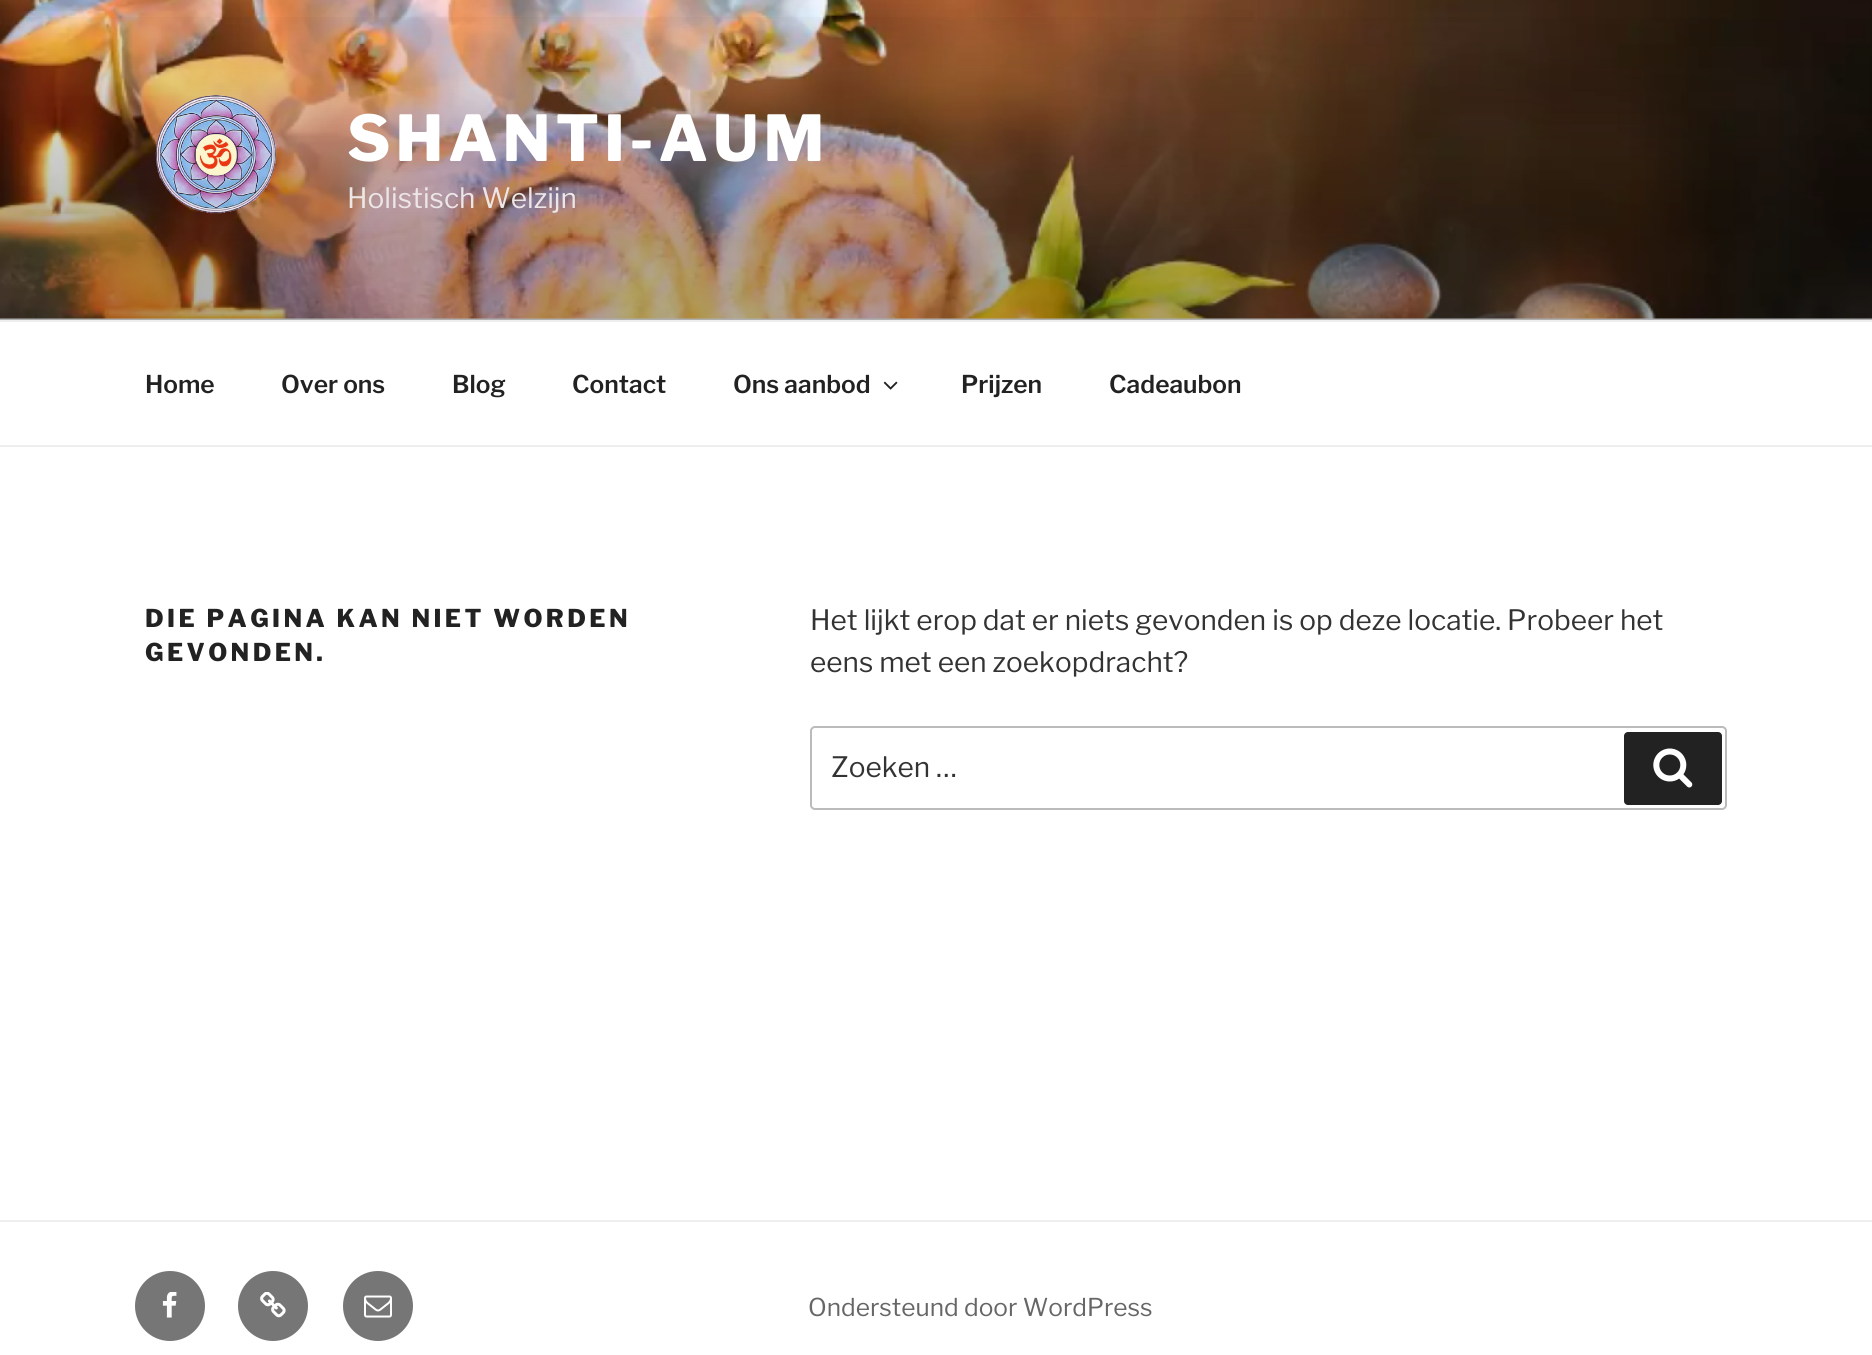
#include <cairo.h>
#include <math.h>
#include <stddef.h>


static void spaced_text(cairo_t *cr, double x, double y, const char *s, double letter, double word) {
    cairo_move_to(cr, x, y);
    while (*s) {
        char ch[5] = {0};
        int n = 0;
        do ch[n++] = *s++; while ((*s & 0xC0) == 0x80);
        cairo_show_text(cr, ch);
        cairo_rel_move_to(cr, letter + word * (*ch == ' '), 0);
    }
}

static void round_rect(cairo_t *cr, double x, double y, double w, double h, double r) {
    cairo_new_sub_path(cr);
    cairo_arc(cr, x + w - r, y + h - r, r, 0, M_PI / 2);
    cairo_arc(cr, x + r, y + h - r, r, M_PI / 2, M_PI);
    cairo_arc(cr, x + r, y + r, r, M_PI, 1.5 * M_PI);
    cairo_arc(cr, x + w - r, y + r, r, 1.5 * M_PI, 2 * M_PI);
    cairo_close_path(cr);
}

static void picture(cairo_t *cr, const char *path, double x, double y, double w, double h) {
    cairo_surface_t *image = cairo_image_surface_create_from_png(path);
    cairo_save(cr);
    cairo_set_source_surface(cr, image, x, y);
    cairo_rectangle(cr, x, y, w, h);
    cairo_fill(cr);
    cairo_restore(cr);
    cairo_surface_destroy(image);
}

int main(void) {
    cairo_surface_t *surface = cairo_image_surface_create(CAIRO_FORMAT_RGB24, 1872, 1355);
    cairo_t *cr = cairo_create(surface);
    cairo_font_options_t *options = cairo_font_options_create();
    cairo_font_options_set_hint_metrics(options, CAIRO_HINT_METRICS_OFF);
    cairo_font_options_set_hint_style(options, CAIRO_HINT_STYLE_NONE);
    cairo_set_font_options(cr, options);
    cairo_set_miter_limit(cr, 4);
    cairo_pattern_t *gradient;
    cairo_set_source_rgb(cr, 1, 1, 1);
    cairo_paint(cr);
    cairo_set_source_rgb(cr, 0.98, 0.98, 0.98);
    cairo_rectangle(cr, 0, 318, 1872, 2);
    cairo_fill(cr);
    picture(cr, "img1.png", 0, 0, 1872, 319);
    gradient = cairo_pattern_create_linear(936, 0, 936, 320);
    cairo_pattern_add_color_stop_rgba(gradient, 0, 0, 0, 0, 0);
    cairo_pattern_add_color_stop_rgba(gradient, 0.75, 0, 0, 0, 0.3);
    cairo_pattern_add_color_stop_rgba(gradient, 1, 0, 0, 0, 0.3);
    cairo_set_source(cr, gradient);
    cairo_pattern_destroy(gradient);
    cairo_rectangle(cr, 0, 17, 1872, 303);
    cairo_fill(cr);
    picture(cr, "img2.png", 155, 95, 122, 119);
    cairo_select_font_face(cr, "Libre Franklin Thin", CAIRO_FONT_SLANT_NORMAL, CAIRO_FONT_WEIGHT_NORMAL);
    cairo_set_font_size(cr, 63);
    cairo_set_source_rgb(cr, 1, 1, 1);
    spaced_text(cr, 347, 161, "SHANTI-AUM", 5, 0);
    cairo_select_font_face(cr, "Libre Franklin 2 Thin", CAIRO_FONT_SLANT_NORMAL, CAIRO_FONT_WEIGHT_NORMAL);
    cairo_set_font_size(cr, 28);
    cairo_set_source_rgb(cr, 0.929, 0.902, 0.902);
    cairo_move_to(cr, 347, 208);
    cairo_show_text(cr, "Holistisch Welzijn");
    cairo_set_source_rgb(cr, 0.933, 0.933, 0.933);
    cairo_rectangle(cr, 0, 320, 1872, 2);
    cairo_fill(cr);
    cairo_rectangle(cr, 0, 445, 1872, 2);
    cairo_fill(cr);
    cairo_select_font_face(cr, "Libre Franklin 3 Thin", CAIRO_FONT_SLANT_NORMAL, CAIRO_FONT_WEIGHT_NORMAL);
    cairo_set_font_size(cr, 24.5);
    cairo_set_source_rgb(cr, 0.133, 0.133, 0.133);
    cairo_move_to(cr, 145, 393);
    cairo_show_text(cr, "Home");
    cairo_move_to(cr, 281, 393);
    cairo_show_text(cr, "Over ons");
    cairo_move_to(cr, 452, 393);
    cairo_show_text(cr, "Blog");
    cairo_move_to(cr, 572, 393);
    cairo_show_text(cr, "Contact");
    cairo_move_to(cr, 733, 393);
    cairo_show_text(cr, "Ons aanbod");
    picture(cr, "img3.png", 883, 381, 15, 9);
    cairo_move_to(cr, 961, 393);
    cairo_show_text(cr, "Prijzen");
    cairo_move_to(cr, 1109, 393);
    cairo_show_text(cr, "Cadeaubon");
    cairo_select_font_face(cr, "Libre Franklin Thin", CAIRO_FONT_SLANT_NORMAL, CAIRO_FONT_WEIGHT_NORMAL);
    spaced_text(cr, 145, 627, "DIE PAGINA KAN NIET WORDEN", 3.4, 0);
    spaced_text(cr, 145, 661, "GEVONDEN.", 3.4, 0);
    cairo_select_font_face(cr, "Libre Franklin 2 Thin", CAIRO_FONT_SLANT_NORMAL, CAIRO_FONT_WEIGHT_NORMAL);
    cairo_set_font_size(cr, 28);
    cairo_set_source_rgb(cr, 0.2, 0.2, 0.2);
    cairo_move_to(cr, 810, 630);
    cairo_show_text(cr, "Het lijkt erop dat er niets gevonden is op deze locatie. Probeer het");
    cairo_move_to(cr, 810, 672);
    cairo_show_text(cr, "eens met een zoekopdracht?");
    round_rect(cr, 811, 727, 915, 82, 4);
    cairo_set_source_rgb(cr, 0.733, 0.733, 0.733);
    cairo_stroke(cr);
    cairo_set_source_rgb(cr, 0.2, 0.2, 0.2);
    cairo_move_to(cr, 831, 777);
    cairo_show_text(cr, "Zoeken …");
    cairo_set_source_rgb(cr, 0.133, 0.133, 0.133);
    round_rect(cr, 1624, 732, 98, 73, 4);
    cairo_fill(cr);
    picture(cr, "img4.png", 1653, 748, 40, 40);
    cairo_set_source_rgb(cr, 0.933, 0.933, 0.933);
    cairo_rectangle(cr, 0, 1220, 1872, 2);
    cairo_fill(cr);
    cairo_set_source_rgb(cr, 0.463, 0.463, 0.463);
    cairo_arc(cr, 170, 1306, 35, 0, 2 * M_PI);
    cairo_fill(cr);
    picture(cr, "img5.png", 162, 1292, 15, 26);
    cairo_arc(cr, 273, 1306, 35, 0, 2 * M_PI);
    cairo_fill(cr);
    picture(cr, "img6.png", 260, 1292, 26, 26);
    cairo_arc(cr, 378, 1306, 35, 0, 2 * M_PI);
    cairo_fill(cr);
    picture(cr, "img7.png", 364, 1295, 28, 23);
    cairo_set_font_size(cr, 24.5);
    cairo_set_source_rgb(cr, 0.4, 0.4, 0.4);
    cairo_move_to(cr, 808, 1316);
    cairo_show_text(cr, "Ondersteund door WordPress");
    cairo_surface_write_to_png(surface, "page.png");
    cairo_font_options_destroy(options);
    cairo_destroy(cr);
    cairo_surface_destroy(surface);
    return 0;
}
